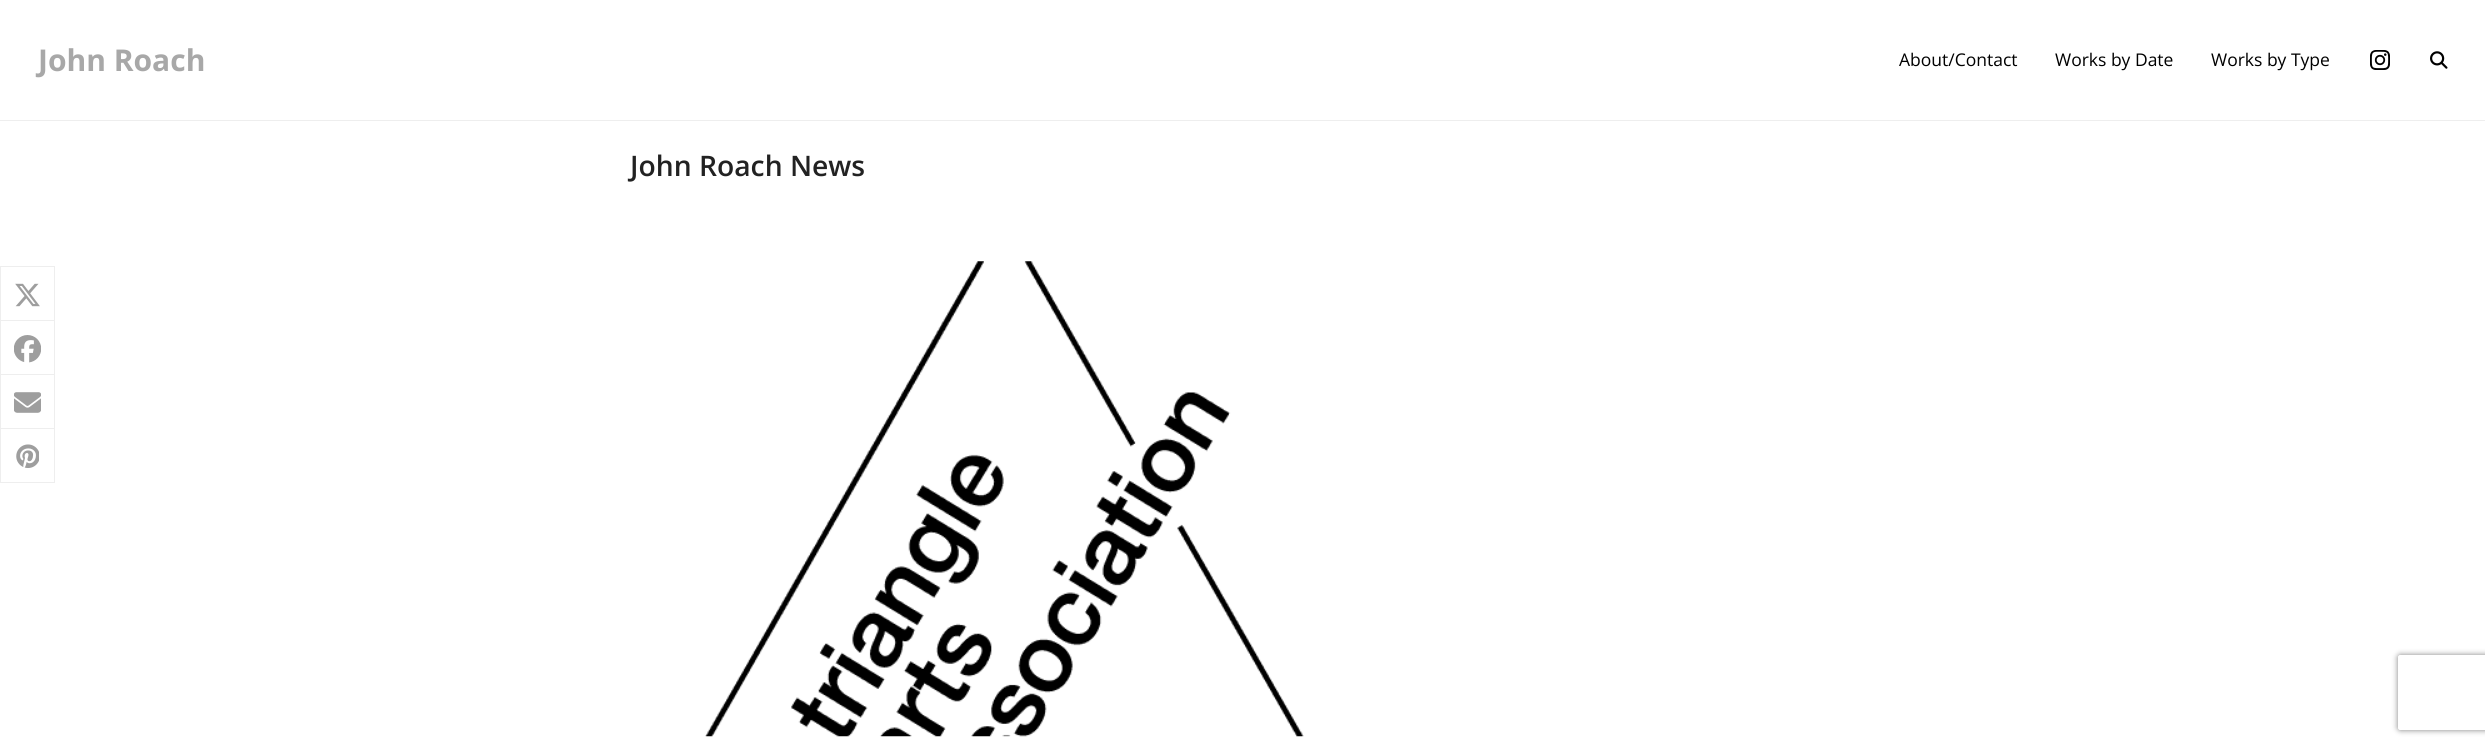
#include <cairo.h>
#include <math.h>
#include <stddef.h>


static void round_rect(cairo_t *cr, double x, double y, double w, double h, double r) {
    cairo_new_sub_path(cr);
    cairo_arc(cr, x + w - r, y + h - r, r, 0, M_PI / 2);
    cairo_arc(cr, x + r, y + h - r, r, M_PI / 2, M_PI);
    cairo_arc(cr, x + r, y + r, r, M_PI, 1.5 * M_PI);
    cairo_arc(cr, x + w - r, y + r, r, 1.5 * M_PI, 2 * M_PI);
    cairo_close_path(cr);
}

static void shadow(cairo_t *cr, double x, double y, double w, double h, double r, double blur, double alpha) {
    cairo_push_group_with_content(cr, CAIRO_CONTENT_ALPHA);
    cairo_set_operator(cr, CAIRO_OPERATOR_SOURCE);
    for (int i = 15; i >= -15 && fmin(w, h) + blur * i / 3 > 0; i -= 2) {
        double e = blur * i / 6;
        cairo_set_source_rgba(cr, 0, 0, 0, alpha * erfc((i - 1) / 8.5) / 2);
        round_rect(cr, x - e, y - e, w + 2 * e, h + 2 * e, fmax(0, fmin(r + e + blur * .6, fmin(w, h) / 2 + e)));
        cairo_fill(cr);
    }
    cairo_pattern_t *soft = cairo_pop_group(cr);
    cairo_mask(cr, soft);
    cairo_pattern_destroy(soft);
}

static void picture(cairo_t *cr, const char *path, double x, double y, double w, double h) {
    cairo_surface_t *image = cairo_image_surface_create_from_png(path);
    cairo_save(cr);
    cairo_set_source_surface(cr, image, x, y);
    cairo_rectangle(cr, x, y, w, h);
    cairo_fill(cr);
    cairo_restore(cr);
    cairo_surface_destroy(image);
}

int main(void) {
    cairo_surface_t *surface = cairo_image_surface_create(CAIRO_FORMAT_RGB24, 2485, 747);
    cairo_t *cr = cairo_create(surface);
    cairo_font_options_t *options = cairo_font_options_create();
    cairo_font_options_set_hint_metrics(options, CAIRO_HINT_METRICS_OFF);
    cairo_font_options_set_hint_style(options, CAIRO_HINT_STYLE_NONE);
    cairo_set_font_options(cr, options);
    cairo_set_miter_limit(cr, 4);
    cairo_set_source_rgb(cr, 1, 1, 1);
    cairo_paint(cr);
    cairo_select_font_face(cr, "Open Sans", CAIRO_FONT_SLANT_NORMAL, CAIRO_FONT_WEIGHT_BOLD);
    cairo_set_font_size(cr, 30);
    cairo_set_source_rgb(cr, 0.659, 0.659, 0.659);
    cairo_move_to(cr, 38, 71);
    cairo_show_text(cr, "John Roach");
    cairo_select_font_face(cr, "Open Sans", CAIRO_FONT_SLANT_NORMAL, CAIRO_FONT_WEIGHT_NORMAL);
    cairo_set_font_size(cr, 17.5);
    cairo_set_source_rgb(cr, 0, 0, 0);
    cairo_move_to(cr, 1899, 66);
    cairo_show_text(cr, "About/Contact");
    cairo_move_to(cr, 2055, 66);
    cairo_show_text(cr, "Works by Date");
    cairo_move_to(cr, 2211, 66);
    cairo_show_text(cr, "Works by Type");
    picture(cr, "img1.png", 2370, 50, 20, 20);
    picture(cr, "img2.png", 2430, 51, 18, 18);
    cairo_set_source_rgb(cr, 0.933, 0.933, 0.933);
    cairo_rectangle(cr, 0, 120, 2485, 1);
    cairo_fill(cr);
    cairo_select_font_face(cr, "Open Sans SemiBold", CAIRO_FONT_SLANT_NORMAL, CAIRO_FONT_WEIGHT_NORMAL);
    cairo_set_font_size(cr, 28.25);
    cairo_set_source_rgb(cr, 0.133, 0.133, 0.133);
    cairo_move_to(cr, 630, 176);
    cairo_show_text(cr, "John Roach News");
    cairo_rectangle(cr, 0.5, 266.5, 54, 54);
    cairo_set_source_rgb(cr, 0.933, 0.933, 0.933);
    cairo_set_line_width(cr, 1);
    cairo_stroke(cr);
    picture(cr, "img3.png", 15, 283, 25, 24);
    cairo_rectangle(cr, 0.5, 320.5, 54, 54);
    cairo_stroke(cr);
    picture(cr, "img4.png", 14, 335, 27, 28);
    cairo_rectangle(cr, 0.5, 374.5, 54, 54);
    cairo_stroke(cr);
    picture(cr, "img5.png", 14, 392, 27, 21);
    cairo_rectangle(cr, 0.5, 428.5, 54, 54);
    cairo_stroke(cr);
    picture(cr, "img6.png", 16, 444, 23, 24);
    picture(cr, "img7.png", 705, 261, 599, 476);
    cairo_save(cr);
    cairo_set_fill_rule(cr, CAIRO_FILL_RULE_EVEN_ODD);
    cairo_new_path(cr);
    cairo_move_to(cr, 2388, 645);
    cairo_line_to(cr, 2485, 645);
    cairo_line_to(cr, 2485, 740);
    cairo_line_to(cr, 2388, 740);
    cairo_close_path(cr);
    cairo_move_to(cr, 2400.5, 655);
    cairo_line_to(cr, 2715.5, 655);
    cairo_curve_to(cr, 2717, 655, 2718, 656, 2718, 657.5);
    cairo_line_to(cr, 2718, 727.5);
    cairo_curve_to(cr, 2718, 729, 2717, 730, 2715.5, 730);
    cairo_line_to(cr, 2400.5, 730);
    cairo_curve_to(cr, 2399, 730, 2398, 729, 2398, 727.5);
    cairo_line_to(cr, 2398, 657.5);
    cairo_curve_to(cr, 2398, 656, 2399, 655, 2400.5, 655);
    cairo_close_path(cr);
    cairo_clip(cr);
    cairo_set_source_rgb(cr, 0.502, 0.502, 0.502);
    shadow(cr, 2398, 655, 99, 75, 2.5, 3, 1);
    cairo_restore(cr);
    cairo_surface_write_to_png(surface, "page.png");
    cairo_font_options_destroy(options);
    cairo_destroy(cr);
    cairo_surface_destroy(surface);
    return 0;
}
